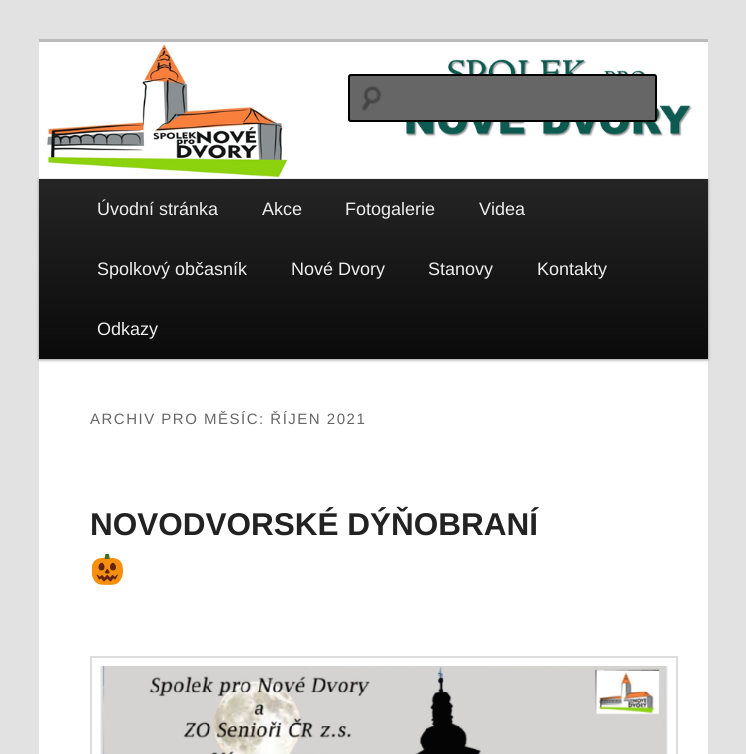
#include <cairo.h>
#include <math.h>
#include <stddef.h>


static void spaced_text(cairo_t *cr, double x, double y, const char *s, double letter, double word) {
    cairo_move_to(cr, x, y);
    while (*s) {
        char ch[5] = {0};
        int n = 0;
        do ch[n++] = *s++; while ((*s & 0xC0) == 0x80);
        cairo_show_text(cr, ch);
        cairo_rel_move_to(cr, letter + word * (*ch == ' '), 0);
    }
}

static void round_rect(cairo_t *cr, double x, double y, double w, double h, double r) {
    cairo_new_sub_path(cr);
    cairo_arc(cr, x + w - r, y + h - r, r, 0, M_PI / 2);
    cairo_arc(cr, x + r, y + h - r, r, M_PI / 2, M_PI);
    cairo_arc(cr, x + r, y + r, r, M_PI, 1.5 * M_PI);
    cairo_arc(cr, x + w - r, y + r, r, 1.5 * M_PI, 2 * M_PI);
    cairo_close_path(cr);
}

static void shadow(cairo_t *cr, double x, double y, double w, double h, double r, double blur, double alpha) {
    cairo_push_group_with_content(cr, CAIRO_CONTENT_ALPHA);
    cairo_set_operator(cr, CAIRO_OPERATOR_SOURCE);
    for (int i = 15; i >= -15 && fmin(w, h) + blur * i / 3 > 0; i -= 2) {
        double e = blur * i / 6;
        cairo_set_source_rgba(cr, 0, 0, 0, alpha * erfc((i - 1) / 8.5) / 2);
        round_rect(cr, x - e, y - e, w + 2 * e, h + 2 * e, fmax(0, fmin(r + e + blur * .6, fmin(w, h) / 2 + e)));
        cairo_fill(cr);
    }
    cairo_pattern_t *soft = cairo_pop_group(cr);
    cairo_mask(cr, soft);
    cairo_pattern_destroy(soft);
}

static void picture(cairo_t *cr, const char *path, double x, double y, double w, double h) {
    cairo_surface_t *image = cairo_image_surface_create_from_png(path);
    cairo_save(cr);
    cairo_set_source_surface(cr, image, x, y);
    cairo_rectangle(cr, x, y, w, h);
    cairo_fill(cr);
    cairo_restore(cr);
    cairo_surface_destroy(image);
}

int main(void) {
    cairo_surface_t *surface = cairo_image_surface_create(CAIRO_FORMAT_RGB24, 746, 754);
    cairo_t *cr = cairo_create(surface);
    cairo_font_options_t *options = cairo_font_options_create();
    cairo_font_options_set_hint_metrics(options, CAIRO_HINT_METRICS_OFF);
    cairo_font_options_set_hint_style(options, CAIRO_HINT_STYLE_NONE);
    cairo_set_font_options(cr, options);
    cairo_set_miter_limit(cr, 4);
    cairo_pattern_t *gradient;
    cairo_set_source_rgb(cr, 0.886, 0.886, 0.886);
    cairo_paint(cr);
    cairo_set_source_rgb(cr, 1, 1, 1);
    cairo_rectangle(cr, 39, 42, 669, 712);
    cairo_fill(cr);
    cairo_set_source_rgb(cr, 0.733, 0.733, 0.733);
    cairo_rectangle(cr, 39, 39, 669, 3);
    cairo_fill(cr);
    cairo_set_source_rgb(cr, 0, 0, 0);
    shadow(cr, 39, 180, 669, 180, 0, 1.5, 0.4);
    picture(cr, "img1.png", 41, 44, 665, 134);
    cairo_set_source_rgb(cr, 0.4, 0.4, 0.4);
    round_rect(cr, 348, 74, 309, 48, 3);
    cairo_fill(cr);
    picture(cr, "img2.png", 361, 86, 21, 25);
    round_rect(cr, 349, 75, 307, 46, 2);
    cairo_set_source_rgb(cr, 0, 0, 0);
    cairo_stroke(cr);
    gradient = cairo_pattern_create_linear(374, 178, 374, 359);
    cairo_pattern_add_color_stop_rgba(gradient, 0, 0.145, 0.145, 0.145, 1);
    cairo_pattern_add_color_stop_rgba(gradient, 1, 0.039, 0.039, 0.039, 1);
    cairo_set_source(cr, gradient);
    cairo_pattern_destroy(gradient);
    cairo_rectangle(cr, 39, 179, 669, 180);
    cairo_fill(cr);
    cairo_select_font_face(cr, "Liberation Sans", CAIRO_FONT_SLANT_NORMAL, CAIRO_FONT_WEIGHT_NORMAL);
    cairo_set_font_size(cr, 18);
    cairo_set_source_rgb(cr, 0.933, 0.933, 0.933);
    cairo_move_to(cr, 97, 215);
    cairo_show_text(cr, "Úvodní stránka");
    cairo_move_to(cr, 262, 215);
    cairo_show_text(cr, "Akce");
    cairo_move_to(cr, 345, 215);
    cairo_show_text(cr, "Fotogalerie");
    cairo_move_to(cr, 479, 215);
    cairo_show_text(cr, "Videa");
    cairo_move_to(cr, 97, 275);
    cairo_show_text(cr, "Spolkový občasník");
    cairo_move_to(cr, 291, 275);
    cairo_show_text(cr, "Nové Dvory");
    cairo_move_to(cr, 428, 275);
    cairo_show_text(cr, "Stanovy");
    cairo_move_to(cr, 537, 275);
    cairo_show_text(cr, "Kontakty");
    cairo_move_to(cr, 97, 335);
    cairo_show_text(cr, "Odkazy");
    cairo_set_font_size(cr, 15);
    cairo_set_source_rgb(cr, 0.4, 0.4, 0.4);
    spaced_text(cr, 90, 424, "ARCHIV PRO MĚSÍC: ŘÍJEN 2021", 1.5, 0);
    cairo_select_font_face(cr, "Liberation Sans", CAIRO_FONT_SLANT_NORMAL, CAIRO_FONT_WEIGHT_BOLD);
    cairo_set_font_size(cr, 31.5);
    cairo_set_source_rgb(cr, 0.133, 0.133, 0.133);
    cairo_move_to(cr, 90, 535);
    cairo_show_text(cr, "NOVODVORSKÉ DÝŇOBRANÍ");
    picture(cr, "img3.png", 92, 554, 31, 31);
    cairo_rectangle(cr, 91, 657, 586, 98);
    cairo_set_source_rgb(cr, 0.867, 0.867, 0.867);
    cairo_stroke(cr);
    picture(cr, "img4.png", 100, 666, 568, 88);
    cairo_surface_write_to_png(surface, "page.png");
    cairo_font_options_destroy(options);
    cairo_destroy(cr);
    cairo_surface_destroy(surface);
    return 0;
}
